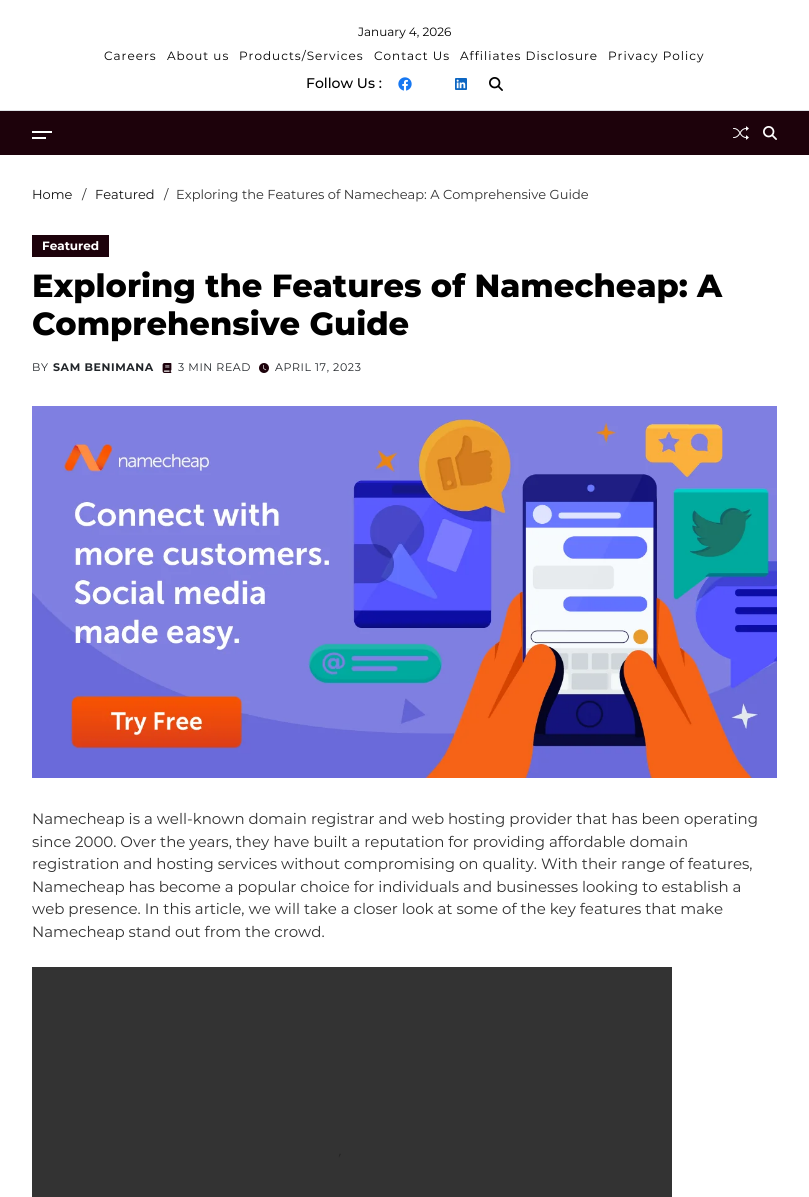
#include <cairo.h>
#include <math.h>
#include <stddef.h>


static void spaced_text(cairo_t *cr, double x, double y, const char *s, double letter, double word) {
    cairo_move_to(cr, x, y);
    while (*s) {
        char ch[5] = {0};
        int n = 0;
        do ch[n++] = *s++; while ((*s & 0xC0) == 0x80);
        cairo_show_text(cr, ch);
        cairo_rel_move_to(cr, letter + word * (*ch == ' '), 0);
    }
}

static void picture(cairo_t *cr, const char *path, double x, double y, double w, double h) {
    cairo_surface_t *image = cairo_image_surface_create_from_png(path);
    cairo_save(cr);
    cairo_set_source_surface(cr, image, x, y);
    cairo_rectangle(cr, x, y, w, h);
    cairo_fill(cr);
    cairo_restore(cr);
    cairo_surface_destroy(image);
}

int main(void) {
    cairo_surface_t *surface = cairo_image_surface_create(CAIRO_FORMAT_RGB24, 809, 1197);
    cairo_t *cr = cairo_create(surface);
    cairo_font_options_t *options = cairo_font_options_create();
    cairo_font_options_set_hint_metrics(options, CAIRO_HINT_METRICS_OFF);
    cairo_font_options_set_hint_style(options, CAIRO_HINT_STYLE_NONE);
    cairo_set_font_options(cr, options);
    cairo_set_miter_limit(cr, 4);
    cairo_set_source_rgb(cr, 1, 1, 1);
    cairo_paint(cr);
    cairo_set_source_rgb(cr, 0.871, 0.886, 0.902);
    cairo_rectangle(cr, 0, 110, 809, 1);
    cairo_fill(cr);
    cairo_select_font_face(cr, "Montserrat", CAIRO_FONT_SLANT_NORMAL, CAIRO_FONT_WEIGHT_NORMAL);
    cairo_set_font_size(cr, 12);
    cairo_set_source_rgb(cr, 0, 0, 0);
    cairo_move_to(cr, 358, 36);
    cairo_show_text(cr, "January 4, 2026");
    spaced_text(cr, 104, 60, "Careers", 1, 0);
    spaced_text(cr, 167, 60, "About us", 1, 0);
    spaced_text(cr, 239, 60, "Products/Services", 1, 0);
    spaced_text(cr, 374, 60, "Contact Us", 1, 0);
    spaced_text(cr, 460, 60, "Affiliates Disclosure", 1, 0);
    spaced_text(cr, 608, 60, "Privacy Policy", 1, 0);
    cairo_select_font_face(cr, "Montserrat Medium", CAIRO_FONT_SLANT_NORMAL, CAIRO_FONT_WEIGHT_NORMAL);
    cairo_set_font_size(cr, 14);
    cairo_move_to(cr, 306, 88);
    cairo_show_text(cr, "Follow Us :");
    picture(cr, "img1.png", 398, 77, 14, 14);
    picture(cr, "img2.png", 455, 78, 12, 12);
    picture(cr, "img3.png", 489, 77, 14, 14);
    cairo_set_source_rgb(cr, 0.114, 0.008, 0.043);
    cairo_rectangle(cr, 0, 111, 809, 44);
    cairo_fill(cr);
    cairo_set_source_rgb(cr, 1, 1, 1);
    cairo_rectangle(cr, 32, 131, 20, 2);
    cairo_fill(cr);
    cairo_rectangle(cr, 32, 137, 14, 2);
    cairo_fill(cr);
    picture(cr, "img4.png", 733, 126, 16, 14);
    picture(cr, "img5.png", 763, 126, 14, 14);
    cairo_select_font_face(cr, "Montserrat", CAIRO_FONT_SLANT_NORMAL, CAIRO_FONT_WEIGHT_NORMAL);
    cairo_set_font_size(cr, 13);
    cairo_set_source_rgb(cr, 0.067, 0.067, 0.067);
    cairo_move_to(cr, 32, 199);
    cairo_show_text(cr, "Home");
    cairo_set_source_rgb(cr, 0.192, 0.192, 0.192);
    cairo_move_to(cr, 82, 199);
    cairo_show_text(cr, "/");
    cairo_set_source_rgb(cr, 0.067, 0.067, 0.067);
    cairo_move_to(cr, 95, 199);
    cairo_show_text(cr, "Featured");
    cairo_set_source_rgb(cr, 0.192, 0.192, 0.192);
    cairo_move_to(cr, 164, 199);
    cairo_show_text(cr, "/");
    cairo_move_to(cr, 176, 199);
    cairo_show_text(cr, "Exploring the Features of Namecheap: A Comprehensive Guide");
    cairo_set_source_rgb(cr, 0.114, 0.008, 0.043);
    cairo_rectangle(cr, 32, 235, 77, 22);
    cairo_fill(cr);
    cairo_select_font_face(cr, "Montserrat", CAIRO_FONT_SLANT_NORMAL, CAIRO_FONT_WEIGHT_BOLD);
    cairo_set_font_size(cr, 12);
    cairo_set_source_rgb(cr, 1, 1, 1);
    cairo_move_to(cr, 42, 250);
    cairo_show_text(cr, "Featured");
    cairo_select_font_face(cr, "Montserrat ExtraBold", CAIRO_FONT_SLANT_NORMAL, CAIRO_FONT_WEIGHT_NORMAL);
    cairo_set_font_size(cr, 32);
    cairo_set_source_rgb(cr, 0, 0, 0);
    cairo_move_to(cr, 32, 297);
    cairo_show_text(cr, "Exploring the Features of Namecheap: A");
    cairo_move_to(cr, 32, 335);
    cairo_show_text(cr, "Comprehensive Guide");
    cairo_select_font_face(cr, "Montserrat", CAIRO_FONT_SLANT_NORMAL, CAIRO_FONT_WEIGHT_NORMAL);
    cairo_set_font_size(cr, 11);
    cairo_set_source_rgb(cr, 0.129, 0.145, 0.161);
    spaced_text(cr, 32, 371, "BY", 0.6, 0);
    cairo_select_font_face(cr, "Montserrat", CAIRO_FONT_SLANT_NORMAL, CAIRO_FONT_WEIGHT_BOLD);
    spaced_text(cr, 53, 371, "SAM BENIMANA", 0.6, 0);
    picture(cr, "img6.png", 162, 363, 10, 10);
    cairo_select_font_face(cr, "Montserrat", CAIRO_FONT_SLANT_NORMAL, CAIRO_FONT_WEIGHT_NORMAL);
    spaced_text(cr, 178, 371, "3 MIN READ", 0.6, 0);
    picture(cr, "img7.png", 259, 363, 10, 10);
    spaced_text(cr, 275, 371, "APRIL 17, 2023", 0.6, 0);
    picture(cr, "img8.png", 32, 406, 745, 372);
    cairo_set_font_size(cr, 15);
    cairo_set_source_rgb(cr, 0.192, 0.192, 0.192);
    cairo_move_to(cr, 32, 824);
    cairo_show_text(cr, "Namecheap is a well-known domain registrar and web hosting provider that has been operating");
    cairo_move_to(cr, 32, 847);
    cairo_show_text(cr, "since 2000. Over the years, they have built a reputation for providing affordable domain");
    cairo_move_to(cr, 32, 869);
    cairo_show_text(cr, "registration and hosting services without compromising on quality. With their range of features,");
    cairo_move_to(cr, 32, 892);
    cairo_show_text(cr, "Namecheap has become a popular choice for individuals and businesses looking to establish a");
    cairo_move_to(cr, 32, 914);
    cairo_show_text(cr, "web presence. In this article, we will take a closer look at some of the key features that make");
    cairo_move_to(cr, 32, 937);
    cairo_show_text(cr, "Namecheap stand out from the crowd.");
    picture(cr, "img9.png", 32, 967, 640, 230);
    cairo_surface_write_to_png(surface, "page.png");
    cairo_font_options_destroy(options);
    cairo_destroy(cr);
    cairo_surface_destroy(surface);
    return 0;
}
